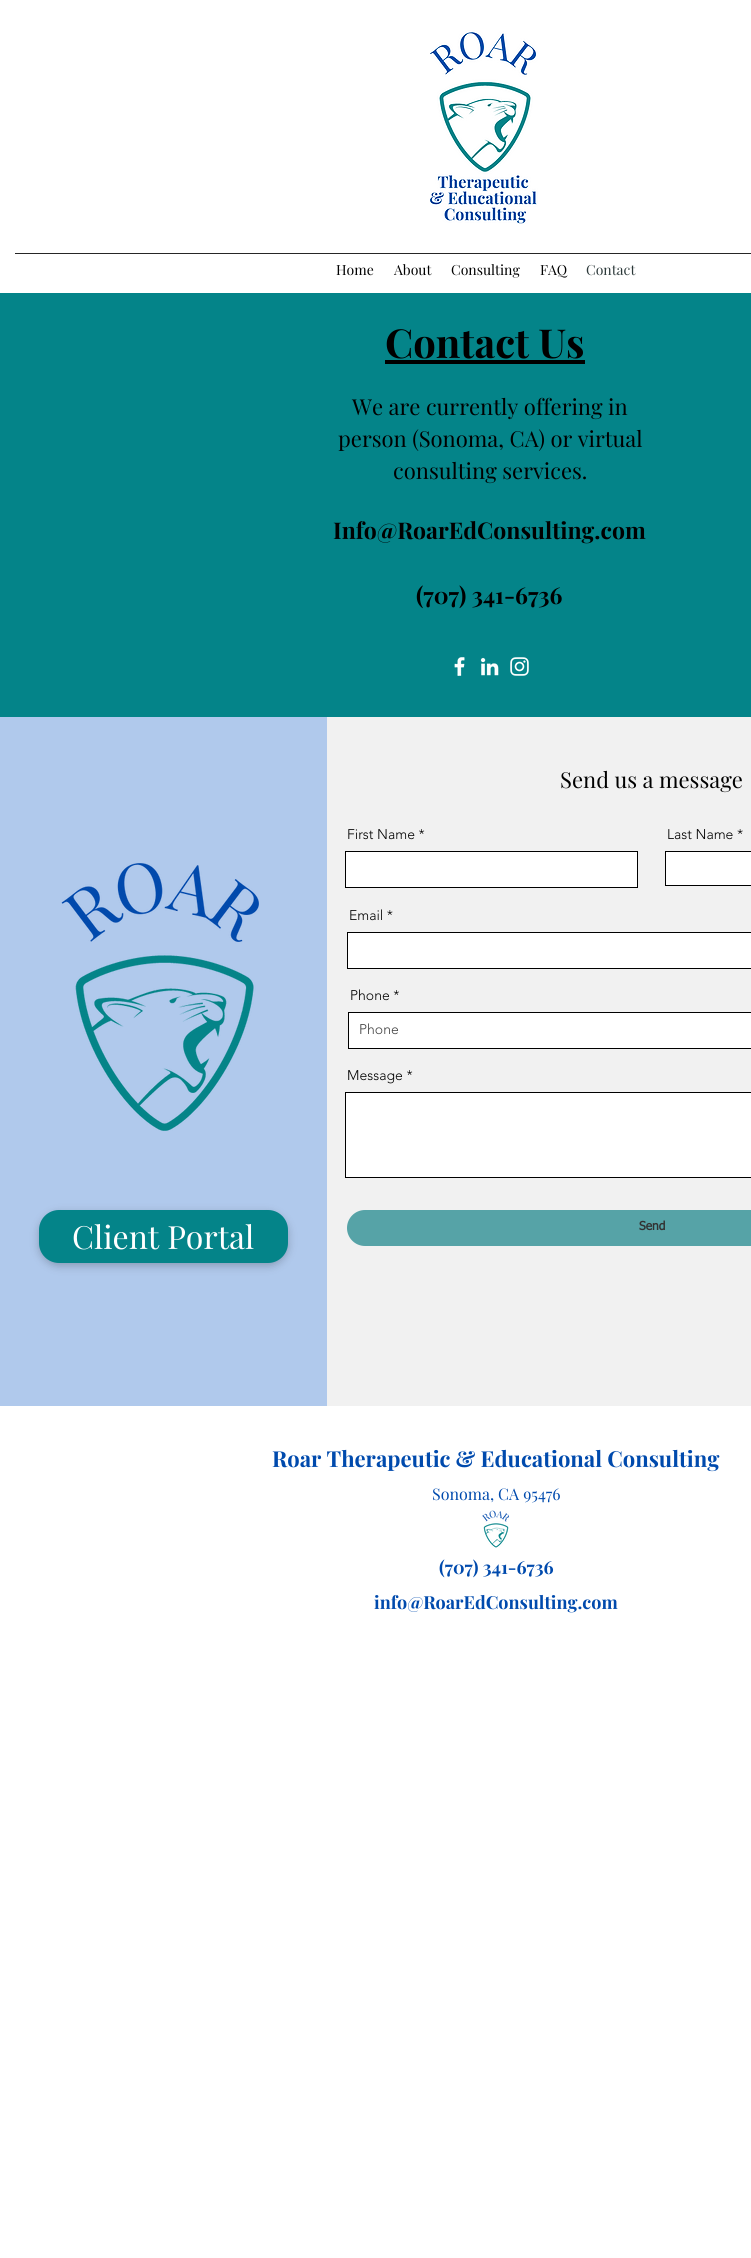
#include <cairo.h>
#include <math.h>
#include <stddef.h>


static void round_rect(cairo_t *cr, double x, double y, double w, double h, double r) {
    cairo_new_sub_path(cr);
    cairo_arc(cr, x + w - r, y + h - r, r, 0, M_PI / 2);
    cairo_arc(cr, x + r, y + h - r, r, M_PI / 2, M_PI);
    cairo_arc(cr, x + r, y + r, r, M_PI, 1.5 * M_PI);
    cairo_arc(cr, x + w - r, y + r, r, 1.5 * M_PI, 2 * M_PI);
    cairo_close_path(cr);
}

static void shadow(cairo_t *cr, double x, double y, double w, double h, double r, double blur, double alpha) {
    cairo_push_group_with_content(cr, CAIRO_CONTENT_ALPHA);
    cairo_set_operator(cr, CAIRO_OPERATOR_SOURCE);
    for (int i = 15; i >= -15 && fmin(w, h) + blur * i / 3 > 0; i -= 2) {
        double e = blur * i / 6;
        cairo_set_source_rgba(cr, 0, 0, 0, alpha * erfc((i - 1) / 8.5) / 2);
        round_rect(cr, x - e, y - e, w + 2 * e, h + 2 * e, fmax(0, fmin(r + e + blur * .6, fmin(w, h) / 2 + e)));
        cairo_fill(cr);
    }
    cairo_pattern_t *soft = cairo_pop_group(cr);
    cairo_mask(cr, soft);
    cairo_pattern_destroy(soft);
}

static void picture(cairo_t *cr, const char *path, double x, double y, double w, double h) {
    cairo_surface_t *image = cairo_image_surface_create_from_png(path);
    cairo_save(cr);
    cairo_set_source_surface(cr, image, x, y);
    cairo_rectangle(cr, x, y, w, h);
    cairo_fill(cr);
    cairo_restore(cr);
    cairo_surface_destroy(image);
}

int main(void) {
    cairo_surface_t *surface = cairo_image_surface_create(CAIRO_FORMAT_RGB24, 751, 2258);
    cairo_t *cr = cairo_create(surface);
    cairo_font_options_t *options = cairo_font_options_create();
    cairo_font_options_set_hint_metrics(options, CAIRO_HINT_METRICS_OFF);
    cairo_font_options_set_hint_style(options, CAIRO_HINT_STYLE_NONE);
    cairo_set_font_options(cr, options);
    cairo_set_miter_limit(cr, 4);
    cairo_set_source_rgb(cr, 1, 1, 1);
    cairo_paint(cr);
    picture(cr, "img1.png", 430, 30, 108, 194);
    cairo_set_source_rgb(cr, 0.149, 0.149, 0.149);
    cairo_rectangle(cr, 15, 253, 736, 1);
    cairo_fill(cr);
    cairo_select_font_face(cr, "Playfair Display", CAIRO_FONT_SLANT_NORMAL, CAIRO_FONT_WEIGHT_NORMAL);
    cairo_set_font_size(cr, 14);
    cairo_set_source_rgb(cr, 0, 0, 0);
    cairo_move_to(cr, 336, 275);
    cairo_show_text(cr, "Home");
    cairo_move_to(cr, 394, 275);
    cairo_show_text(cr, "About");
    cairo_move_to(cr, 451, 275);
    cairo_show_text(cr, "Consulting");
    cairo_move_to(cr, 540, 275);
    cairo_show_text(cr, "FAQ");
    cairo_set_source_rgb(cr, 0.169, 0.22, 0.224);
    cairo_move_to(cr, 586, 275);
    cairo_show_text(cr, "Contact");
    cairo_set_source_rgb(cr, 0.016, 0.518, 0.537);
    cairo_rectangle(cr, 0, 293, 751, 424);
    cairo_fill(cr);
    cairo_select_font_face(cr, "Playfair Display", CAIRO_FONT_SLANT_NORMAL, CAIRO_FONT_WEIGHT_BOLD);
    cairo_set_font_size(cr, 40);
    cairo_set_source_rgb(cr, 0, 0, 0);
    cairo_move_to(cr, 385, 358);
    cairo_show_text(cr, "Contact Us");
    cairo_rectangle(cr, 385, 360, 200, 4);
    cairo_fill(cr);
    cairo_select_font_face(cr, "Playfair Display", CAIRO_FONT_SLANT_NORMAL, CAIRO_FONT_WEIGHT_NORMAL);
    cairo_set_font_size(cr, 22);
    cairo_move_to(cr, 352, 415);
    cairo_show_text(cr, "We are currently offering in");
    cairo_move_to(cr, 338, 447);
    cairo_show_text(cr, "person (Sonoma, CA) or virtual");
    cairo_move_to(cr, 393, 479);
    cairo_show_text(cr, "consulting services.");
    cairo_select_font_face(cr, "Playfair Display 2", CAIRO_FONT_SLANT_NORMAL, CAIRO_FONT_WEIGHT_BOLD);
    cairo_set_font_size(cr, 23);
    cairo_move_to(cr, 333, 539);
    cairo_show_text(cr, "Info@RoarEdConsulting.com");
    cairo_move_to(cr, 416, 604);
    cairo_show_text(cr, "(707) 341-6736");
    picture(cr, "img2.png", 454, 657, 11, 19);
    picture(cr, "img3.png", 480, 657, 19, 19);
    picture(cr, "img4.png", 510, 657, 19, 19);
    cairo_set_source_rgb(cr, 0.945, 0.945, 0.945);
    cairo_rectangle(cr, 327, 717, 424, 689);
    cairo_fill(cr);
    cairo_select_font_face(cr, "Playfair Display", CAIRO_FONT_SLANT_NORMAL, CAIRO_FONT_WEIGHT_NORMAL);
    cairo_set_font_size(cr, 22);
    cairo_set_source_rgb(cr, 0, 0, 0);
    cairo_move_to(cr, 560, 788);
    cairo_show_text(cr, "Send us a message");
    cairo_select_font_face(cr, "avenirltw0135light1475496 Light", CAIRO_FONT_SLANT_NORMAL, CAIRO_FONT_WEIGHT_NORMAL);
    cairo_set_font_size(cr, 14);
    cairo_move_to(cr, 347, 839);
    cairo_show_text(cr, "First Name *");
    cairo_set_source_rgb(cr, 1, 1, 1);
    cairo_rectangle(cr, 345.5, 851.5, 292, 36);
    cairo_fill_preserve(cr);
    cairo_set_source_rgb(cr, 0, 0, 0);
    cairo_set_line_width(cr, 1);
    cairo_stroke(cr);
    cairo_move_to(cr, 667, 839);
    cairo_show_text(cr, "Last Name *");
    cairo_set_source_rgb(cr, 1, 1, 1);
    cairo_rectangle(cr, 665.5, 851.5, 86, 34);
    cairo_fill_preserve(cr);
    cairo_set_source_rgb(cr, 0, 0, 0);
    cairo_stroke(cr);
    cairo_move_to(cr, 349, 920);
    cairo_show_text(cr, "Email *");
    cairo_set_source_rgb(cr, 1, 1, 1);
    cairo_rectangle(cr, 347.5, 932.5, 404, 36);
    cairo_fill_preserve(cr);
    cairo_set_source_rgb(cr, 0, 0, 0);
    cairo_stroke(cr);
    cairo_move_to(cr, 350, 1000);
    cairo_show_text(cr, "Phone *");
    cairo_set_source_rgb(cr, 1, 1, 1);
    cairo_rectangle(cr, 348.5, 1012.5, 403, 36);
    cairo_fill_preserve(cr);
    cairo_set_source_rgb(cr, 0, 0, 0);
    cairo_stroke(cr);
    cairo_set_source_rgb(cr, 0.251, 0.251, 0.251);
    cairo_move_to(cr, 359, 1034);
    cairo_show_text(cr, "Phone");
    cairo_set_source_rgb(cr, 0, 0, 0);
    cairo_move_to(cr, 347, 1080);
    cairo_show_text(cr, "Message *");
    cairo_set_source_rgb(cr, 1, 1, 1);
    cairo_rectangle(cr, 345.5, 1092.5, 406, 85);
    cairo_fill_preserve(cr);
    cairo_set_source_rgb(cr, 0, 0, 0);
    cairo_stroke(cr);
    cairo_set_source_rgb(cr, 0.337, 0.639, 0.655);
    round_rect(cr, 347, 1210, 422, 36, 18);
    cairo_fill(cr);
    cairo_select_font_face(cr, "tahoma", CAIRO_FONT_SLANT_NORMAL, CAIRO_FONT_WEIGHT_BOLD);
    cairo_set_font_size(cr, 12);
    cairo_set_source_rgb(cr, 0.196, 0.196, 0.196);
    cairo_move_to(cr, 639, 1230);
    cairo_show_text(cr, "Send");
    cairo_set_source_rgb(cr, 0.69, 0.788, 0.922);
    cairo_rectangle(cr, 0, 717, 327, 689);
    cairo_fill(cr);
    picture(cr, "img5.png", 61, 863, 198, 268);
    cairo_set_source_rgb(cr, 0, 0, 0);
    shadow(cr, 39, 1213, 249, 53, 20, 4.5, 0.23);
    cairo_set_source_rgb(cr, 0.016, 0.518, 0.537);
    round_rect(cr, 39, 1210, 249, 53, 20);
    cairo_fill(cr);
    cairo_select_font_face(cr, "Playfair Display", CAIRO_FONT_SLANT_NORMAL, CAIRO_FONT_WEIGHT_NORMAL);
    cairo_set_font_size(cr, 32);
    cairo_set_source_rgb(cr, 1, 1, 1);
    cairo_move_to(cr, 72, 1249);
    cairo_show_text(cr, "Client Portal");
    cairo_select_font_face(cr, "Playfair Display 2", CAIRO_FONT_SLANT_NORMAL, CAIRO_FONT_WEIGHT_BOLD);
    cairo_set_font_size(cr, 22);
    cairo_set_source_rgb(cr, 0, 0.29, 0.678);
    cairo_move_to(cr, 272, 1467);
    cairo_show_text(cr, "Roar Therapeutic & Educational Consulting");
    cairo_select_font_face(cr, "Playfair Display", CAIRO_FONT_SLANT_NORMAL, CAIRO_FONT_WEIGHT_NORMAL);
    cairo_set_font_size(cr, 16);
    cairo_move_to(cr, 432, 1500);
    cairo_show_text(cr, "Sonoma, CA 95476");
    picture(cr, "img6.png", 482, 1510, 27, 38);
    cairo_select_font_face(cr, "Playfair Display 2", CAIRO_FONT_SLANT_NORMAL, CAIRO_FONT_WEIGHT_BOLD);
    cairo_set_font_size(cr, 18);
    cairo_move_to(cr, 439, 1574);
    cairo_show_text(cr, "(707) 341-6736");
    cairo_move_to(cr, 374, 1609);
    cairo_show_text(cr, "info@RoarEdConsulting.com");
    cairo_surface_write_to_png(surface, "page.png");
    cairo_font_options_destroy(options);
    cairo_destroy(cr);
    cairo_surface_destroy(surface);
    return 0;
}
